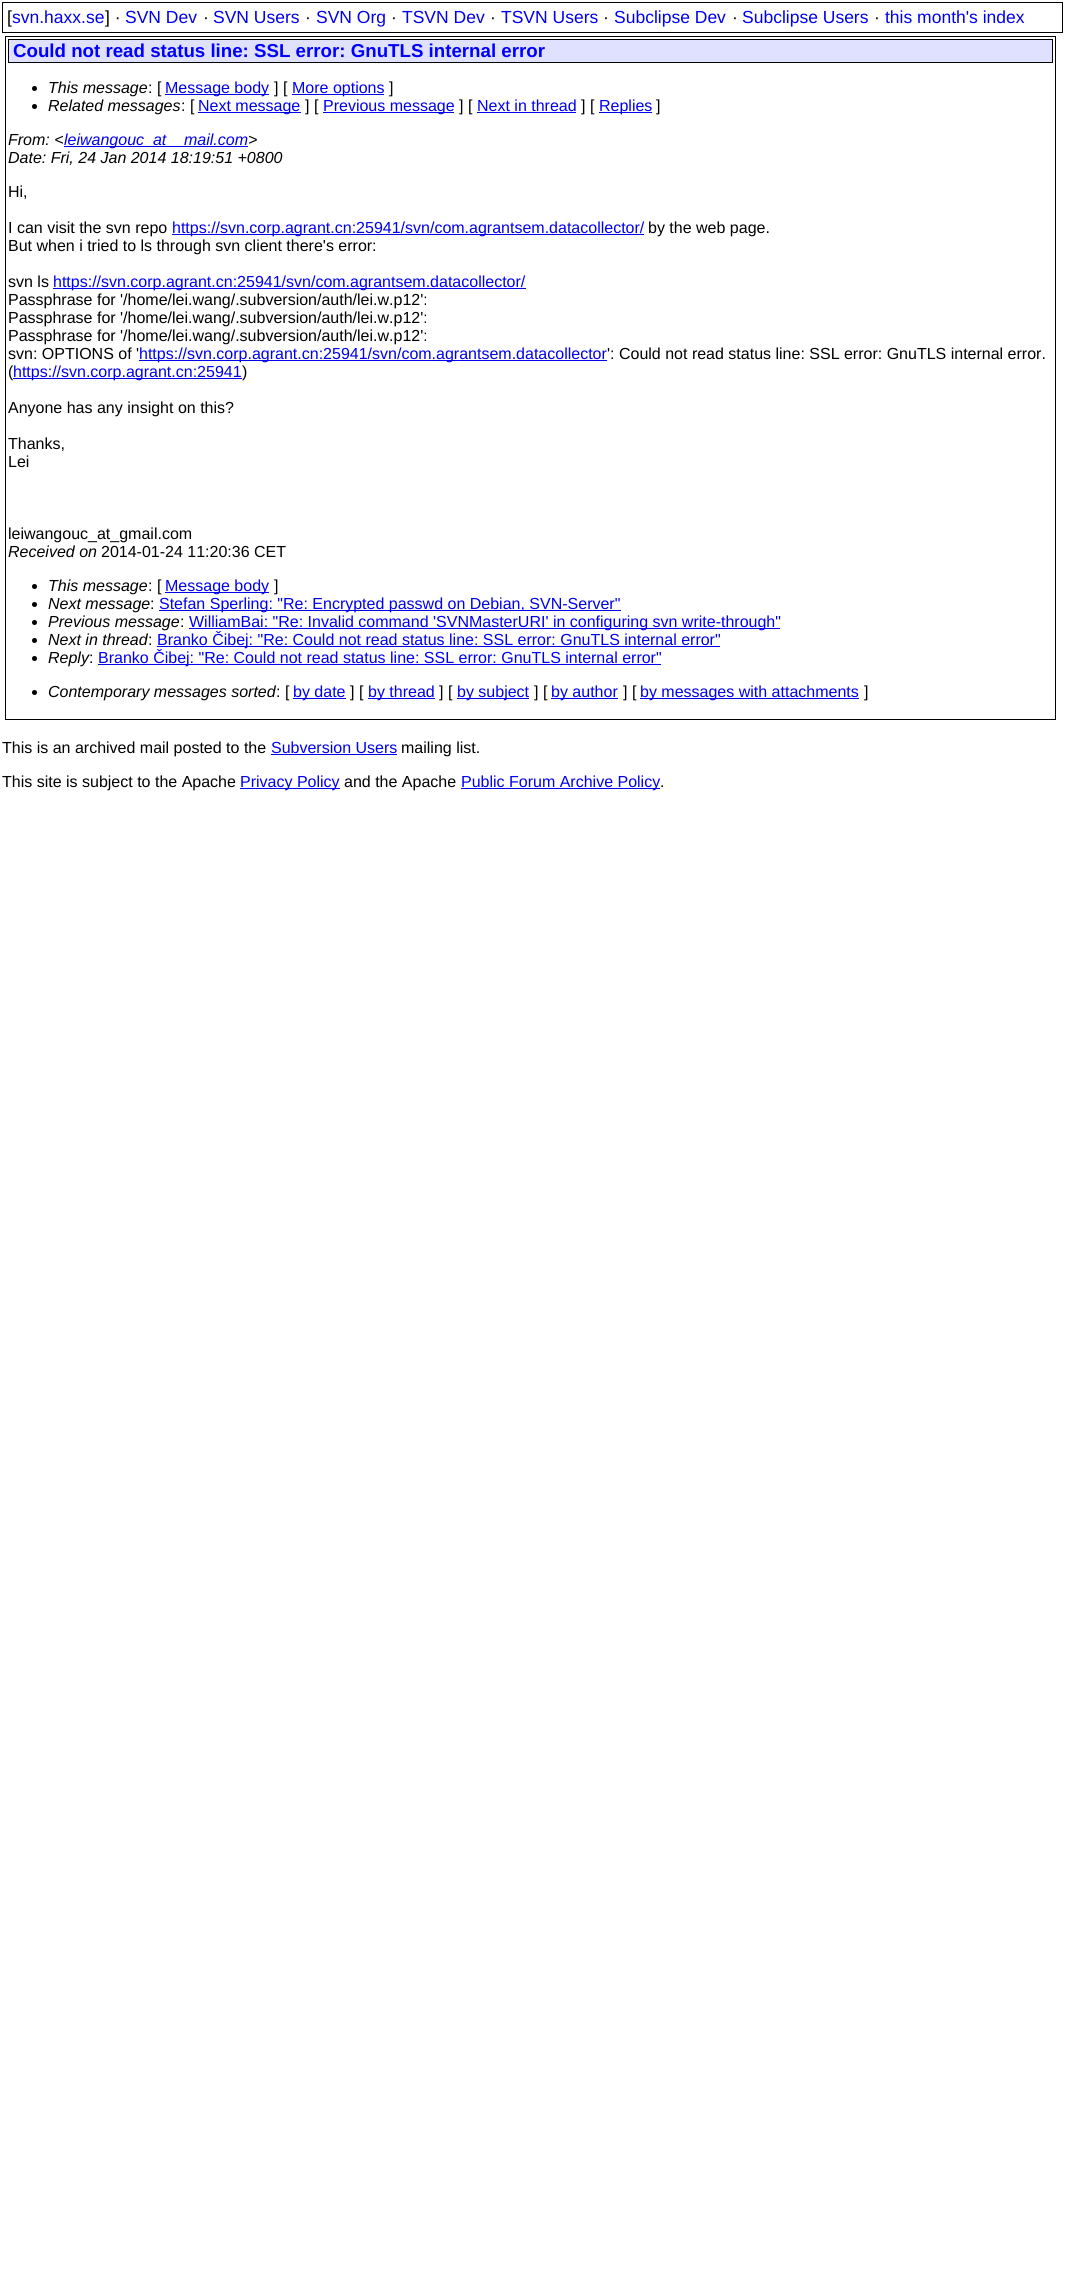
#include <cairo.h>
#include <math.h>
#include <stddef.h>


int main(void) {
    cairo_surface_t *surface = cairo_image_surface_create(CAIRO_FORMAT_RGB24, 1065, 2286);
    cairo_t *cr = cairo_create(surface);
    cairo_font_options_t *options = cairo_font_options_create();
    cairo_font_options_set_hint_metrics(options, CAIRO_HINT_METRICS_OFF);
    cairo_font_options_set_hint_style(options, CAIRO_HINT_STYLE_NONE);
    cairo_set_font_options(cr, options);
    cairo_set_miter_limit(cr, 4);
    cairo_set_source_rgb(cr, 1, 1, 1);
    cairo_paint(cr);
    cairo_rectangle(cr, 2.5, 2.5, 1060, 30);
    cairo_set_source_rgb(cr, 0, 0, 0);
    cairo_set_line_width(cr, 1);
    cairo_stroke(cr);
    cairo_select_font_face(cr, "Liberation Sans", CAIRO_FONT_SLANT_NORMAL, CAIRO_FONT_WEIGHT_NORMAL);
    cairo_set_font_size(cr, 17.5);
    cairo_move_to(cr, 7, 23);
    cairo_show_text(cr, "[");
    cairo_set_source_rgb(cr, 0, 0, 0.933);
    cairo_move_to(cr, 12, 23);
    cairo_show_text(cr, "svn.haxx.se");
    cairo_set_source_rgb(cr, 0, 0, 0);
    cairo_move_to(cr, 105, 23);
    cairo_show_text(cr, "] ·");
    cairo_set_source_rgb(cr, 0, 0, 0.933);
    cairo_move_to(cr, 125, 23);
    cairo_show_text(cr, "SVN Dev");
    cairo_set_source_rgb(cr, 0, 0, 0);
    cairo_move_to(cr, 203, 23);
    cairo_show_text(cr, "·");
    cairo_set_source_rgb(cr, 0, 0, 0.933);
    cairo_move_to(cr, 213, 23);
    cairo_show_text(cr, "SVN Users");
    cairo_set_source_rgb(cr, 0, 0, 0);
    cairo_move_to(cr, 305, 23);
    cairo_show_text(cr, "·");
    cairo_set_source_rgb(cr, 0, 0, 0.933);
    cairo_move_to(cr, 316, 23);
    cairo_show_text(cr, "SVN Org");
    cairo_set_source_rgb(cr, 0, 0, 0);
    cairo_move_to(cr, 391, 23);
    cairo_show_text(cr, "·");
    cairo_set_source_rgb(cr, 0, 0, 0.933);
    cairo_move_to(cr, 402, 23);
    cairo_show_text(cr, "TSVN Dev");
    cairo_set_source_rgb(cr, 0, 0, 0);
    cairo_move_to(cr, 490, 23);
    cairo_show_text(cr, "·");
    cairo_set_source_rgb(cr, 0, 0, 0.933);
    cairo_move_to(cr, 501, 23);
    cairo_show_text(cr, "TSVN Users");
    cairo_set_source_rgb(cr, 0, 0, 0);
    cairo_move_to(cr, 603, 23);
    cairo_show_text(cr, "·");
    cairo_set_source_rgb(cr, 0, 0, 0.933);
    cairo_move_to(cr, 614, 23);
    cairo_show_text(cr, "Subclipse Dev");
    cairo_set_source_rgb(cr, 0, 0, 0);
    cairo_move_to(cr, 732, 23);
    cairo_show_text(cr, "·");
    cairo_set_source_rgb(cr, 0, 0, 0.933);
    cairo_move_to(cr, 742, 23);
    cairo_show_text(cr, "Subclipse Users");
    cairo_set_source_rgb(cr, 0, 0, 0);
    cairo_move_to(cr, 874, 23);
    cairo_show_text(cr, "·");
    cairo_set_source_rgb(cr, 0, 0, 0.933);
    cairo_move_to(cr, 885, 23);
    cairo_show_text(cr, "this month's index");
    cairo_rectangle(cr, 5.5, 36.5, 1050, 683);
    cairo_set_source_rgb(cr, 0, 0, 0);
    cairo_stroke(cr);
    cairo_set_source_rgb(cr, 0.878, 0.878, 1);
    cairo_rectangle(cr, 8.5, 39.5, 1044, 23);
    cairo_fill_preserve(cr);
    cairo_set_source_rgb(cr, 0, 0, 0);
    cairo_stroke(cr);
    cairo_select_font_face(cr, "Liberation Sans", CAIRO_FONT_SLANT_NORMAL, CAIRO_FONT_WEIGHT_BOLD);
    cairo_set_font_size(cr, 18.7);
    cairo_set_source_rgb(cr, 0, 0, 1);
    cairo_move_to(cr, 13, 57);
    cairo_show_text(cr, "Could not read status line: SSL error: GnuTLS internal error");
    cairo_set_source_rgb(cr, 0, 0, 0);
    cairo_new_path(cr);
    cairo_arc(cr, 34.5, 88.5, 2.5, 0, 2 * M_PI);
    cairo_fill(cr);
    cairo_select_font_face(cr, "Liberation Sans", CAIRO_FONT_SLANT_ITALIC, CAIRO_FONT_WEIGHT_NORMAL);
    cairo_set_font_size(cr, 16);
    cairo_move_to(cr, 48, 93);
    cairo_show_text(cr, "This message");
    cairo_select_font_face(cr, "Liberation Sans", CAIRO_FONT_SLANT_NORMAL, CAIRO_FONT_WEIGHT_NORMAL);
    cairo_move_to(cr, 148, 93);
    cairo_show_text(cr, ": [");
    cairo_set_source_rgb(cr, 0, 0, 0.933);
    cairo_rectangle(cr, 165, 94, 104, 1);
    cairo_fill(cr);
    cairo_move_to(cr, 165, 93);
    cairo_show_text(cr, "Message body");
    cairo_set_source_rgb(cr, 0, 0, 0);
    cairo_move_to(cr, 274, 93);
    cairo_show_text(cr, "] [");
    cairo_set_source_rgb(cr, 0, 0, 0.933);
    cairo_rectangle(cr, 292, 94, 92, 1);
    cairo_fill(cr);
    cairo_move_to(cr, 292, 93);
    cairo_show_text(cr, "More options");
    cairo_set_source_rgb(cr, 0, 0, 0);
    cairo_move_to(cr, 389, 93);
    cairo_show_text(cr, "]");
    cairo_new_path(cr);
    cairo_arc(cr, 34.5, 106.5, 2.5, 0, 2 * M_PI);
    cairo_fill(cr);
    cairo_select_font_face(cr, "Liberation Sans", CAIRO_FONT_SLANT_ITALIC, CAIRO_FONT_WEIGHT_NORMAL);
    cairo_move_to(cr, 48, 111);
    cairo_show_text(cr, "Related messages");
    cairo_select_font_face(cr, "Liberation Sans", CAIRO_FONT_SLANT_NORMAL, CAIRO_FONT_WEIGHT_NORMAL);
    cairo_move_to(cr, 181, 111);
    cairo_show_text(cr, ": [");
    cairo_set_source_rgb(cr, 0, 0, 0.933);
    cairo_rectangle(cr, 198, 112, 103, 1);
    cairo_fill(cr);
    cairo_move_to(cr, 198, 111);
    cairo_show_text(cr, "Next message");
    cairo_set_source_rgb(cr, 0, 0, 0);
    cairo_move_to(cr, 305, 111);
    cairo_show_text(cr, "] [");
    cairo_set_source_rgb(cr, 0, 0, 0.933);
    cairo_rectangle(cr, 323, 112, 131, 1);
    cairo_fill(cr);
    cairo_move_to(cr, 323, 111);
    cairo_show_text(cr, "Previous message");
    cairo_set_source_rgb(cr, 0, 0, 0);
    cairo_move_to(cr, 459, 111);
    cairo_show_text(cr, "] [");
    cairo_set_source_rgb(cr, 0, 0, 0.933);
    cairo_move_to(cr, 477, 111);
    cairo_show_text(cr, "Next in thread");
    cairo_rectangle(cr, 477, 112, 99, 1);
    cairo_fill(cr);
    cairo_set_source_rgb(cr, 0, 0, 0);
    cairo_move_to(cr, 581, 111);
    cairo_show_text(cr, "] [");
    cairo_set_source_rgb(cr, 0, 0, 0.933);
    cairo_rectangle(cr, 599, 112, 53, 1);
    cairo_fill(cr);
    cairo_move_to(cr, 599, 111);
    cairo_show_text(cr, "Replies");
    cairo_set_source_rgb(cr, 0, 0, 0);
    cairo_move_to(cr, 656, 111);
    cairo_show_text(cr, "]");
    cairo_select_font_face(cr, "Liberation Sans", CAIRO_FONT_SLANT_ITALIC, CAIRO_FONT_WEIGHT_NORMAL);
    cairo_move_to(cr, 8, 145);
    cairo_show_text(cr, "From: <");
    cairo_set_source_rgb(cr, 0, 0, 0.933);
    cairo_rectangle(cr, 64, 146, 184, 1);
    cairo_fill(cr);
    cairo_move_to(cr, 64, 145);
    cairo_show_text(cr, "leiwangouc_at");
    cairo_move_to(cr, 184, 145);
    cairo_show_text(cr, "mail.com");
    cairo_set_source_rgb(cr, 0, 0, 0);
    cairo_move_to(cr, 248, 145);
    cairo_show_text(cr, ">");
    cairo_move_to(cr, 8, 163);
    cairo_show_text(cr, "Date: Fri, 24 Jan 2014 18:19:51 +0800");
    cairo_select_font_face(cr, "Liberation Sans", CAIRO_FONT_SLANT_NORMAL, CAIRO_FONT_WEIGHT_NORMAL);
    cairo_move_to(cr, 8, 197);
    cairo_show_text(cr, "Hi,");
    cairo_move_to(cr, 8, 233);
    cairo_show_text(cr, "I can visit the svn repo");
    cairo_set_source_rgb(cr, 0, 0, 0.933);
    cairo_rectangle(cr, 172, 234, 472, 1);
    cairo_fill(cr);
    cairo_move_to(cr, 172, 233);
    cairo_show_text(cr, "https://svn.corp.agrant.cn:25941/svn/com.agrantsem.datacollector/");
    cairo_set_source_rgb(cr, 0, 0, 0);
    cairo_move_to(cr, 648, 233);
    cairo_show_text(cr, "by the web page.");
    cairo_move_to(cr, 8, 251);
    cairo_show_text(cr, "But when i tried to ls through svn client there's error:");
    cairo_move_to(cr, 8, 287);
    cairo_show_text(cr, "svn ls");
    cairo_set_source_rgb(cr, 0, 0, 0.933);
    cairo_rectangle(cr, 53, 288, 473, 1);
    cairo_fill(cr);
    cairo_move_to(cr, 53, 287);
    cairo_show_text(cr, "https://svn.corp.agrant.cn:25941/svn/com.agrantsem.datacollector/");
    cairo_set_source_rgb(cr, 0, 0, 0);
    cairo_move_to(cr, 8, 305);
    cairo_show_text(cr, "Passphrase for '/home/lei.wang/.subversion/auth/lei.w.p12':");
    cairo_move_to(cr, 8, 323);
    cairo_show_text(cr, "Passphrase for '/home/lei.wang/.subversion/auth/lei.w.p12':");
    cairo_move_to(cr, 8, 341);
    cairo_show_text(cr, "Passphrase for '/home/lei.wang/.subversion/auth/lei.w.p12':");
    cairo_move_to(cr, 8, 359);
    cairo_show_text(cr, "svn: OPTIONS of '");
    cairo_set_source_rgb(cr, 0, 0, 0.933);
    cairo_rectangle(cr, 139, 360, 468, 1);
    cairo_fill(cr);
    cairo_move_to(cr, 139, 359);
    cairo_show_text(cr, "https://svn.corp.agrant.cn:25941/svn/com.agrantsem.datacollector");
    cairo_set_source_rgb(cr, 0, 0, 0);
    cairo_move_to(cr, 607, 359);
    cairo_show_text(cr, "': Could not read status line: SSL error: GnuTLS internal error.");
    cairo_move_to(cr, 8, 377);
    cairo_show_text(cr, "(");
    cairo_set_source_rgb(cr, 0, 0, 0.933);
    cairo_rectangle(cr, 13, 378, 229, 1);
    cairo_fill(cr);
    cairo_move_to(cr, 13, 377);
    cairo_show_text(cr, "https://svn.corp.agrant.cn:25941");
    cairo_set_source_rgb(cr, 0, 0, 0);
    cairo_move_to(cr, 242, 377);
    cairo_show_text(cr, ")");
    cairo_move_to(cr, 8, 413);
    cairo_show_text(cr, "Anyone has any insight on this?");
    cairo_move_to(cr, 8, 449);
    cairo_show_text(cr, "Thanks,");
    cairo_move_to(cr, 8, 467);
    cairo_show_text(cr, "Lei");
    cairo_move_to(cr, 8, 539);
    cairo_show_text(cr, "leiwangouc_at_gmail.com");
    cairo_select_font_face(cr, "Liberation Sans", CAIRO_FONT_SLANT_ITALIC, CAIRO_FONT_WEIGHT_NORMAL);
    cairo_move_to(cr, 8, 557);
    cairo_show_text(cr, "Received on");
    cairo_select_font_face(cr, "Liberation Sans", CAIRO_FONT_SLANT_NORMAL, CAIRO_FONT_WEIGHT_NORMAL);
    cairo_move_to(cr, 101, 557);
    cairo_show_text(cr, "2014-01-24 11:20:36 CET");
    cairo_new_path(cr);
    cairo_arc(cr, 34.5, 586.5, 2.5, 0, 2 * M_PI);
    cairo_fill(cr);
    cairo_select_font_face(cr, "Liberation Sans", CAIRO_FONT_SLANT_ITALIC, CAIRO_FONT_WEIGHT_NORMAL);
    cairo_move_to(cr, 48, 591);
    cairo_show_text(cr, "This message");
    cairo_select_font_face(cr, "Liberation Sans", CAIRO_FONT_SLANT_NORMAL, CAIRO_FONT_WEIGHT_NORMAL);
    cairo_move_to(cr, 148, 591);
    cairo_show_text(cr, ": [");
    cairo_set_source_rgb(cr, 0, 0, 0.933);
    cairo_rectangle(cr, 165, 592, 104, 1);
    cairo_fill(cr);
    cairo_move_to(cr, 165, 591);
    cairo_show_text(cr, "Message body");
    cairo_set_source_rgb(cr, 0, 0, 0);
    cairo_move_to(cr, 274, 591);
    cairo_show_text(cr, "]");
    cairo_new_path(cr);
    cairo_arc(cr, 34.5, 604.5, 2.5, 0, 2 * M_PI);
    cairo_fill(cr);
    cairo_select_font_face(cr, "Liberation Sans", CAIRO_FONT_SLANT_ITALIC, CAIRO_FONT_WEIGHT_NORMAL);
    cairo_move_to(cr, 48, 609);
    cairo_show_text(cr, "Next message");
    cairo_select_font_face(cr, "Liberation Sans", CAIRO_FONT_SLANT_NORMAL, CAIRO_FONT_WEIGHT_NORMAL);
    cairo_move_to(cr, 150, 609);
    cairo_show_text(cr, ":");
    cairo_set_source_rgb(cr, 0, 0, 0.933);
    cairo_rectangle(cr, 159, 610, 462, 1);
    cairo_fill(cr);
    cairo_move_to(cr, 159, 609);
    cairo_show_text(cr, "Stefan Sperling: \"Re: Encrypted passwd on Debian, SVN-Server\"");
    cairo_set_source_rgb(cr, 0, 0, 0);
    cairo_new_path(cr);
    cairo_arc(cr, 34.5, 622.5, 2.5, 0, 2 * M_PI);
    cairo_fill(cr);
    cairo_select_font_face(cr, "Liberation Sans", CAIRO_FONT_SLANT_ITALIC, CAIRO_FONT_WEIGHT_NORMAL);
    cairo_move_to(cr, 48, 627);
    cairo_show_text(cr, "Previous message");
    cairo_select_font_face(cr, "Liberation Sans", CAIRO_FONT_SLANT_NORMAL, CAIRO_FONT_WEIGHT_NORMAL);
    cairo_move_to(cr, 180, 627);
    cairo_show_text(cr, ":");
    cairo_set_source_rgb(cr, 0, 0, 0.933);
    cairo_rectangle(cr, 189, 628, 591, 1);
    cairo_fill(cr);
    cairo_move_to(cr, 189, 627);
    cairo_show_text(cr, "WilliamBai: \"Re: Invalid command 'SVNMasterURI' in configuring svn write-through\"");
    cairo_set_source_rgb(cr, 0, 0, 0);
    cairo_new_path(cr);
    cairo_arc(cr, 34.5, 640.5, 2.5, 0, 2 * M_PI);
    cairo_fill(cr);
    cairo_select_font_face(cr, "Liberation Sans", CAIRO_FONT_SLANT_ITALIC, CAIRO_FONT_WEIGHT_NORMAL);
    cairo_move_to(cr, 48, 645);
    cairo_show_text(cr, "Next in thread");
    cairo_select_font_face(cr, "Liberation Sans", CAIRO_FONT_SLANT_NORMAL, CAIRO_FONT_WEIGHT_NORMAL);
    cairo_move_to(cr, 148, 645);
    cairo_show_text(cr, ":");
    cairo_set_source_rgb(cr, 0, 0, 0.933);
    cairo_rectangle(cr, 157, 646, 563, 1);
    cairo_fill(cr);
    cairo_move_to(cr, 157, 645);
    cairo_show_text(cr, "Branko Čibej: \"Re: Could not read status line: SSL error: GnuTLS internal error\"");
    cairo_set_source_rgb(cr, 0, 0, 0);
    cairo_new_path(cr);
    cairo_arc(cr, 34.5, 658.5, 2.5, 0, 2 * M_PI);
    cairo_fill(cr);
    cairo_select_font_face(cr, "Liberation Sans", CAIRO_FONT_SLANT_ITALIC, CAIRO_FONT_WEIGHT_NORMAL);
    cairo_move_to(cr, 48, 663);
    cairo_show_text(cr, "Reply");
    cairo_select_font_face(cr, "Liberation Sans", CAIRO_FONT_SLANT_NORMAL, CAIRO_FONT_WEIGHT_NORMAL);
    cairo_move_to(cr, 89, 663);
    cairo_show_text(cr, ":");
    cairo_set_source_rgb(cr, 0, 0, 0.933);
    cairo_rectangle(cr, 98, 664, 563, 1);
    cairo_fill(cr);
    cairo_move_to(cr, 98, 663);
    cairo_show_text(cr, "Branko Čibej: \"Re: Could not read status line: SSL error: GnuTLS internal error\"");
    cairo_set_source_rgb(cr, 0, 0, 0);
    cairo_new_path(cr);
    cairo_arc(cr, 34.5, 692.5, 2.5, 0, 2 * M_PI);
    cairo_fill(cr);
    cairo_select_font_face(cr, "Liberation Sans", CAIRO_FONT_SLANT_ITALIC, CAIRO_FONT_WEIGHT_NORMAL);
    cairo_move_to(cr, 48, 697);
    cairo_show_text(cr, "Contemporary messages sorted");
    cairo_select_font_face(cr, "Liberation Sans", CAIRO_FONT_SLANT_NORMAL, CAIRO_FONT_WEIGHT_NORMAL);
    cairo_move_to(cr, 276, 697);
    cairo_show_text(cr, ": [");
    cairo_set_source_rgb(cr, 0, 0, 0.933);
    cairo_rectangle(cr, 293, 698, 53, 1);
    cairo_fill(cr);
    cairo_move_to(cr, 293, 697);
    cairo_show_text(cr, "by date");
    cairo_set_source_rgb(cr, 0, 0, 0);
    cairo_move_to(cr, 350, 697);
    cairo_show_text(cr, "] [");
    cairo_set_source_rgb(cr, 0, 0, 0.933);
    cairo_rectangle(cr, 368, 698, 67, 1);
    cairo_fill(cr);
    cairo_move_to(cr, 368, 697);
    cairo_show_text(cr, "by thread");
    cairo_set_source_rgb(cr, 0, 0, 0);
    cairo_move_to(cr, 439, 697);
    cairo_show_text(cr, "] [");
    cairo_set_source_rgb(cr, 0, 0, 0.933);
    cairo_rectangle(cr, 457, 698, 72, 1);
    cairo_fill(cr);
    cairo_move_to(cr, 457, 697);
    cairo_show_text(cr, "by subject");
    cairo_set_source_rgb(cr, 0, 0, 0);
    cairo_move_to(cr, 534, 697);
    cairo_show_text(cr, "] [");
    cairo_set_source_rgb(cr, 0, 0, 0.933);
    cairo_rectangle(cr, 551, 698, 67, 1);
    cairo_fill(cr);
    cairo_move_to(cr, 551, 697);
    cairo_show_text(cr, "by author");
    cairo_set_source_rgb(cr, 0, 0, 0);
    cairo_move_to(cr, 623, 697);
    cairo_show_text(cr, "] [");
    cairo_set_source_rgb(cr, 0, 0, 0.933);
    cairo_rectangle(cr, 640, 698, 219, 1);
    cairo_fill(cr);
    cairo_move_to(cr, 640, 697);
    cairo_show_text(cr, "by messages with attachments");
    cairo_set_source_rgb(cr, 0, 0, 0);
    cairo_move_to(cr, 864, 697);
    cairo_show_text(cr, "]");
    cairo_move_to(cr, 2, 753);
    cairo_show_text(cr, "This is an archived mail posted to the");
    cairo_set_source_rgb(cr, 0, 0, 0.933);
    cairo_move_to(cr, 271, 753);
    cairo_show_text(cr, "Subversion Users");
    cairo_rectangle(cr, 271, 754, 126, 1);
    cairo_fill(cr);
    cairo_set_source_rgb(cr, 0, 0, 0);
    cairo_move_to(cr, 401, 753);
    cairo_show_text(cr, "mailing list.");
    cairo_move_to(cr, 2, 787);
    cairo_show_text(cr, "This site is subject to the Apache");
    cairo_set_source_rgb(cr, 0, 0, 0.933);
    cairo_rectangle(cr, 240, 788, 100, 1);
    cairo_fill(cr);
    cairo_move_to(cr, 240, 787);
    cairo_show_text(cr, "Privacy Policy");
    cairo_set_source_rgb(cr, 0, 0, 0);
    cairo_move_to(cr, 344, 787);
    cairo_show_text(cr, "and the Apache");
    cairo_set_source_rgb(cr, 0, 0, 0.933);
    cairo_rectangle(cr, 461, 788, 199, 1);
    cairo_fill(cr);
    cairo_move_to(cr, 461, 787);
    cairo_show_text(cr, "Public Forum Archive Policy");
    cairo_set_source_rgb(cr, 0, 0, 0);
    cairo_move_to(cr, 660, 787);
    cairo_show_text(cr, ".");
    cairo_surface_write_to_png(surface, "page.png");
    cairo_font_options_destroy(options);
    cairo_destroy(cr);
    cairo_surface_destroy(surface);
    return 0;
}
